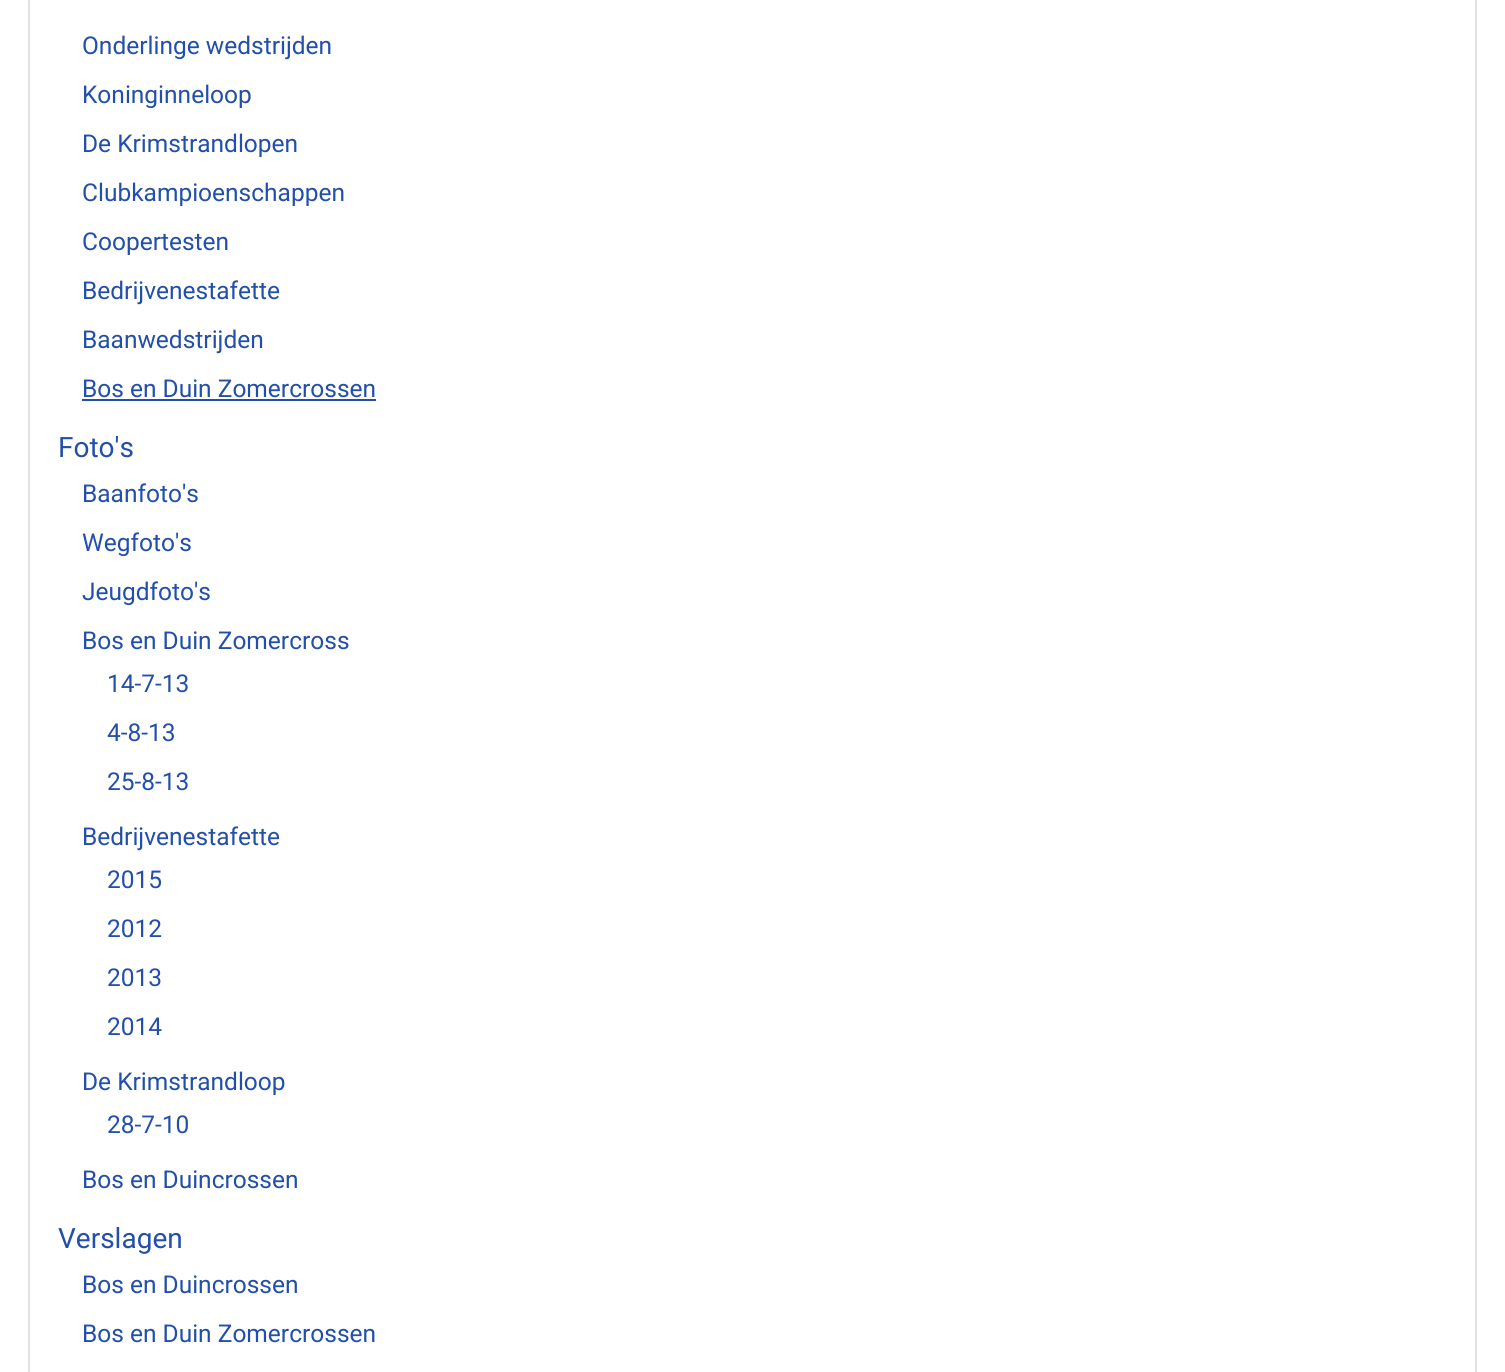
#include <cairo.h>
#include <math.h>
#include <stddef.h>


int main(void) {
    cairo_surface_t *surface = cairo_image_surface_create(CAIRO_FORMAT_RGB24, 1505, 1372);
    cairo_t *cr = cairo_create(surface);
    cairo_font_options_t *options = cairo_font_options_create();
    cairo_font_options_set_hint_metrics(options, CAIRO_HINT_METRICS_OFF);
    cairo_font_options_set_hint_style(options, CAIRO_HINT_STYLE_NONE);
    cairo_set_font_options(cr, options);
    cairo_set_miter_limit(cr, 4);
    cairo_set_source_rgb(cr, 1, 1, 1);
    cairo_paint(cr);
    cairo_rectangle(cr, 29, -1, 1447, 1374);
    cairo_set_source_rgb(cr, 0.875, 0.89, 0.906);
    cairo_stroke(cr);
    cairo_select_font_face(cr, "Roboto", CAIRO_FONT_SLANT_NORMAL, CAIRO_FONT_WEIGHT_NORMAL);
    cairo_set_font_size(cr, 24.5);
    cairo_set_source_rgb(cr, 0.133, 0.31, 0.667);
    cairo_move_to(cr, 82, 54);
    cairo_show_text(cr, "Onderlinge wedstrijden");
    cairo_move_to(cr, 82, 103);
    cairo_show_text(cr, "Koninginneloop");
    cairo_move_to(cr, 82, 152);
    cairo_show_text(cr, "De Krimstrandlopen");
    cairo_move_to(cr, 82, 201);
    cairo_show_text(cr, "Clubkampioenschappen");
    cairo_move_to(cr, 82, 250);
    cairo_show_text(cr, "Coopertesten");
    cairo_move_to(cr, 82, 299);
    cairo_show_text(cr, "Bedrijvenestafette");
    cairo_move_to(cr, 82, 348);
    cairo_show_text(cr, "Baanwedstrijden");
    cairo_move_to(cr, 82, 397);
    cairo_show_text(cr, "Bos en Duin Zomercrossen");
    cairo_rectangle(cr, 82, 399, 294, 2);
    cairo_fill(cr);
    cairo_set_font_size(cr, 28);
    cairo_move_to(cr, 58, 457);
    cairo_show_text(cr, "Foto's");
    cairo_set_font_size(cr, 24.5);
    cairo_move_to(cr, 82, 502);
    cairo_show_text(cr, "Baanfoto's");
    cairo_move_to(cr, 82, 551);
    cairo_show_text(cr, "Wegfoto's");
    cairo_move_to(cr, 82, 600);
    cairo_show_text(cr, "Jeugdfoto's");
    cairo_move_to(cr, 82, 649);
    cairo_show_text(cr, "Bos en Duin Zomercross");
    cairo_move_to(cr, 107, 692);
    cairo_show_text(cr, "14-7-13");
    cairo_move_to(cr, 107, 741);
    cairo_show_text(cr, "4-8-13");
    cairo_move_to(cr, 107, 790);
    cairo_show_text(cr, "25-8-13");
    cairo_move_to(cr, 82, 845);
    cairo_show_text(cr, "Bedrijvenestafette");
    cairo_move_to(cr, 107, 888);
    cairo_show_text(cr, "2015");
    cairo_move_to(cr, 107, 937);
    cairo_show_text(cr, "2012");
    cairo_move_to(cr, 107, 986);
    cairo_show_text(cr, "2013");
    cairo_move_to(cr, 107, 1035);
    cairo_show_text(cr, "2014");
    cairo_move_to(cr, 82, 1090);
    cairo_show_text(cr, "De Krimstrandloop");
    cairo_move_to(cr, 107, 1133);
    cairo_show_text(cr, "28-7-10");
    cairo_move_to(cr, 82, 1188);
    cairo_show_text(cr, "Bos en Duincrossen");
    cairo_set_font_size(cr, 28);
    cairo_move_to(cr, 58, 1248);
    cairo_show_text(cr, "Verslagen");
    cairo_set_font_size(cr, 24.5);
    cairo_move_to(cr, 82, 1293);
    cairo_show_text(cr, "Bos en Duincrossen");
    cairo_move_to(cr, 82, 1342);
    cairo_show_text(cr, "Bos en Duin Zomercrossen");
    cairo_surface_write_to_png(surface, "page.png");
    cairo_font_options_destroy(options);
    cairo_destroy(cr);
    cairo_surface_destroy(surface);
    return 0;
}
